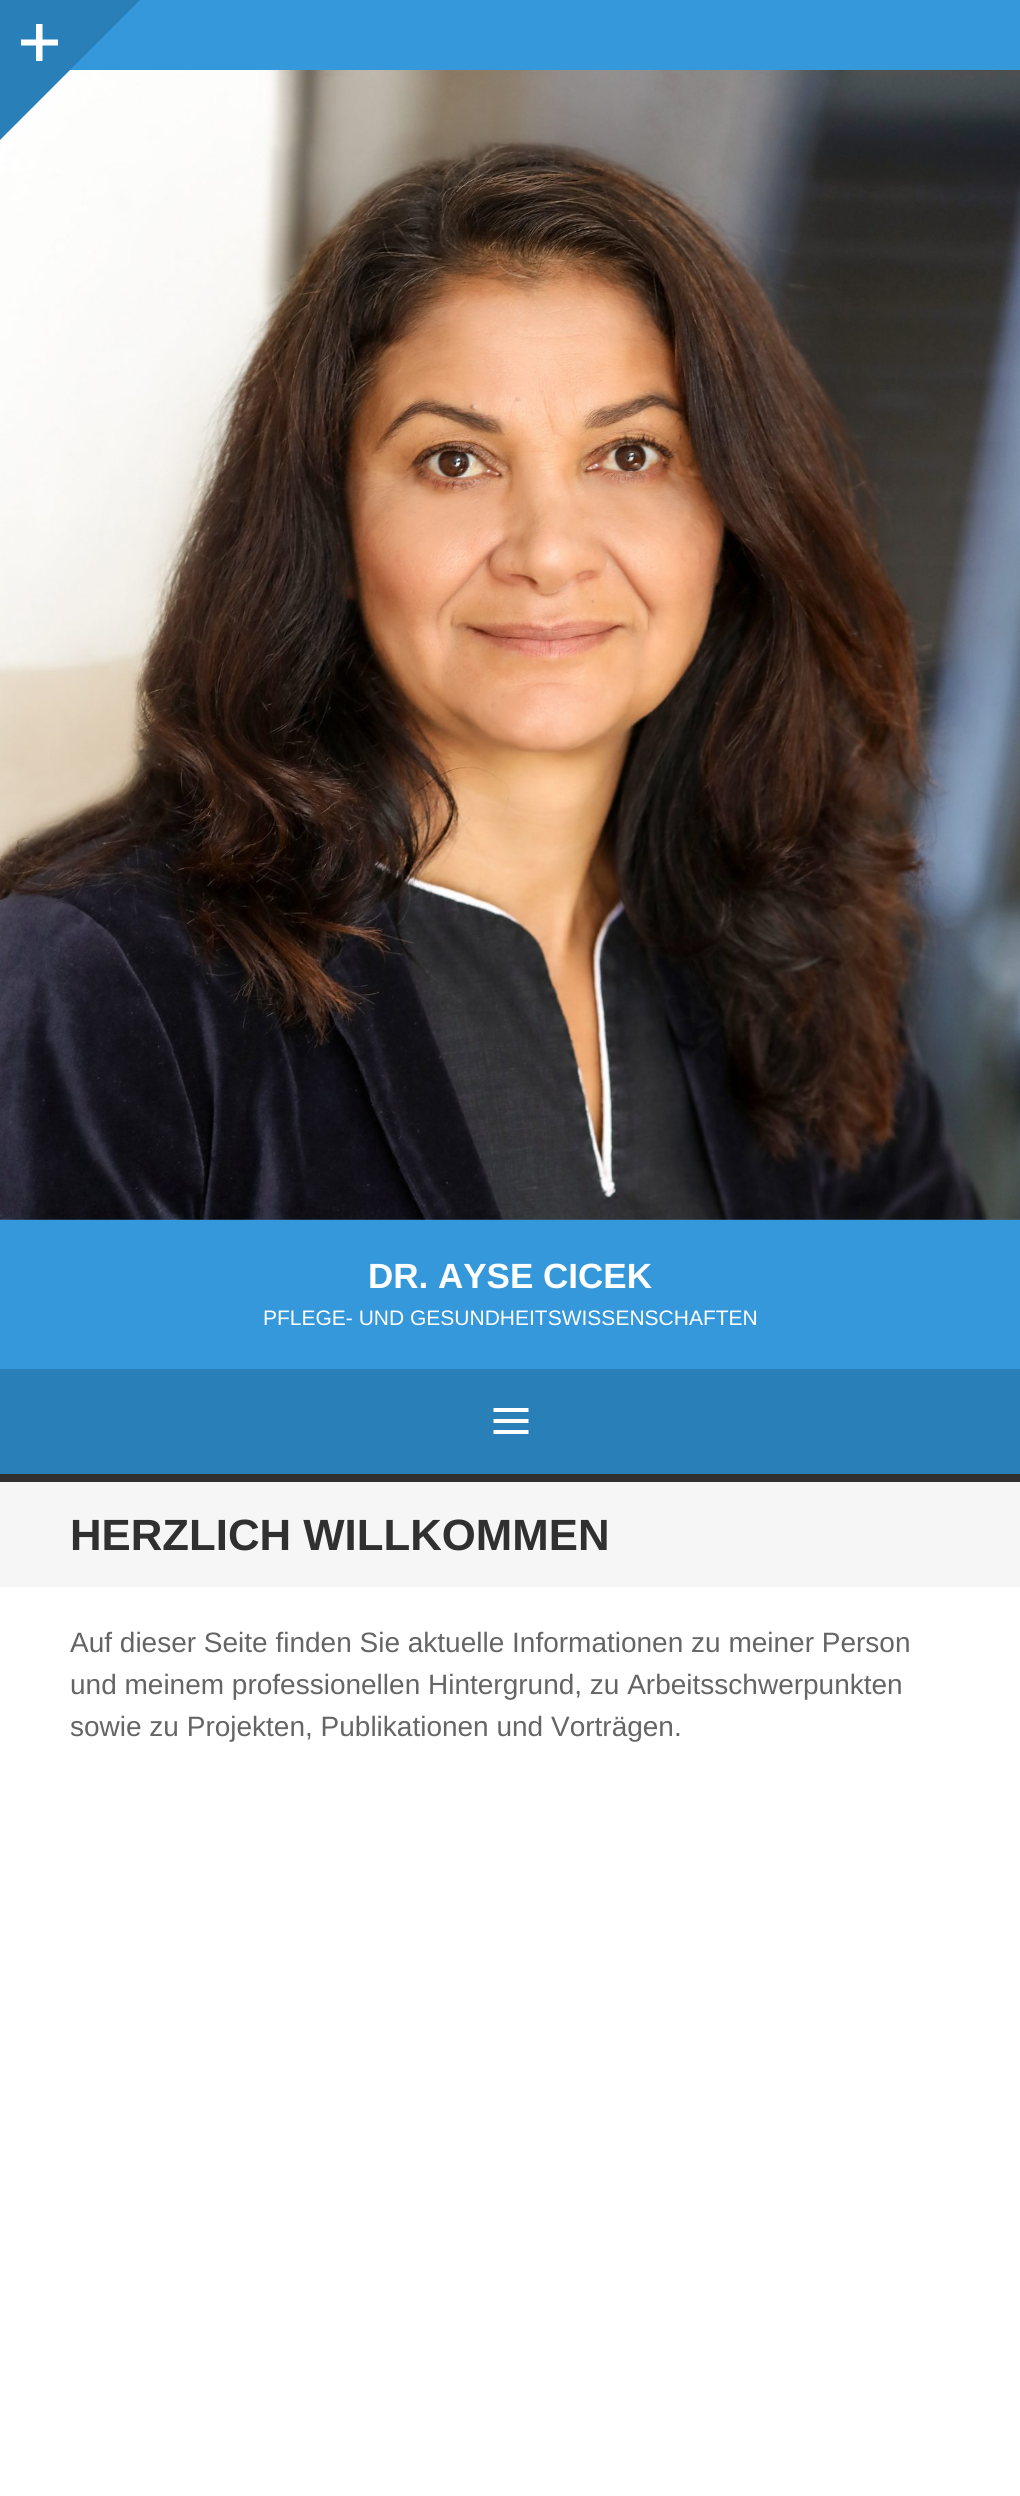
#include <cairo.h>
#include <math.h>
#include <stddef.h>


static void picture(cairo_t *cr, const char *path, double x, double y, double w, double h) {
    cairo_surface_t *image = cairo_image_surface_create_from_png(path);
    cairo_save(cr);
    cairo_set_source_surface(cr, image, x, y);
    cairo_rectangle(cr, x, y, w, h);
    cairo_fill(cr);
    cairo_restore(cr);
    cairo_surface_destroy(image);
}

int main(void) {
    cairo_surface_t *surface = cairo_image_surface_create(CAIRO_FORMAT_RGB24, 1020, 2496);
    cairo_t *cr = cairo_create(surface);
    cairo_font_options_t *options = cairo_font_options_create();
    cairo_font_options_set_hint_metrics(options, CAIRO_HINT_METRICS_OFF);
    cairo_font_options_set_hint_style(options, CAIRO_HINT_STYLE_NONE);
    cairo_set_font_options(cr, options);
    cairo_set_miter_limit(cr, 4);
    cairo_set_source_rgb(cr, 1, 1, 1);
    cairo_paint(cr);
    cairo_set_source_rgb(cr, 0.204, 0.596, 0.859);
    cairo_rectangle(cr, 0, 0, 1020, 1369);
    cairo_fill(cr);
    cairo_set_source_rgb(cr, 0.161, 0.502, 0.725);
    cairo_rectangle(cr, 0, 0, 70, 70);
    cairo_fill(cr);
    cairo_set_source_rgb(cr, 1, 1, 1);
    cairo_new_path(cr);
    cairo_move_to(cr, 42.5, 45.5);
    cairo_line_to(cr, 42.5, 61);
    cairo_line_to(cr, 36, 61);
    cairo_line_to(cr, 36, 45.5);
    cairo_line_to(cr, 21, 45.5);
    cairo_line_to(cr, 21, 39.5);
    cairo_line_to(cr, 36, 39.5);
    cairo_line_to(cr, 36, 24);
    cairo_line_to(cr, 42.5, 24);
    cairo_line_to(cr, 42.5, 39.5);
    cairo_line_to(cr, 58, 39.5);
    cairo_line_to(cr, 58, 45.5);
    cairo_close_path(cr);
    cairo_fill(cr);
    cairo_set_source_rgb(cr, 0.161, 0.502, 0.725);
    cairo_new_path(cr);
    cairo_move_to(cr, 70, 0);
    cairo_line_to(cr, 140, 0);
    cairo_line_to(cr, 70, 70);
    cairo_close_path(cr);
    cairo_fill(cr);
    picture(cr, "img1.png", 0, 70, 1020, 1150);
    cairo_new_path(cr);
    cairo_move_to(cr, 0, 70);
    cairo_line_to(cr, 70, 70);
    cairo_line_to(cr, 0, 140);
    cairo_close_path(cr);
    cairo_fill(cr);
    cairo_select_font_face(cr, "Liberation Sans", CAIRO_FONT_SLANT_NORMAL, CAIRO_FONT_WEIGHT_BOLD);
    cairo_set_font_size(cr, 35);
    cairo_set_source_rgb(cr, 1, 1, 1);
    cairo_move_to(cr, 368, 1288);
    cairo_show_text(cr, "DR. AYSE CICEK");
    cairo_select_font_face(cr, "Liberation Sans", CAIRO_FONT_SLANT_NORMAL, CAIRO_FONT_WEIGHT_NORMAL);
    cairo_set_font_size(cr, 21);
    cairo_move_to(cr, 263, 1325);
    cairo_show_text(cr, "PFLEGE- UND GESUNDHEITSWISSENSCHAFTEN");
    cairo_set_source_rgb(cr, 0.161, 0.502, 0.725);
    cairo_rectangle(cr, 0, 1369, 1020, 105);
    cairo_fill(cr);
    cairo_set_source_rgb(cr, 0.188, 0.188, 0.188);
    cairo_rectangle(cr, 0, 1474, 1020, 8);
    cairo_fill(cr);
    cairo_set_source_rgb(cr, 1, 1, 1);
    cairo_new_path(cr);
    cairo_move_to(cr, 528.5, 1408);
    cairo_line_to(cr, 528.5, 1412);
    cairo_line_to(cr, 493.5, 1412);
    cairo_line_to(cr, 493.5, 1408);
    cairo_close_path(cr);
    cairo_move_to(cr, 493.5, 1419);
    cairo_line_to(cr, 528.5, 1419);
    cairo_line_to(cr, 528.5, 1423);
    cairo_line_to(cr, 493.5, 1423);
    cairo_close_path(cr);
    cairo_move_to(cr, 493.5, 1430);
    cairo_line_to(cr, 528.5, 1430);
    cairo_line_to(cr, 528.5, 1434);
    cairo_line_to(cr, 493.5, 1434);
    cairo_close_path(cr);
    cairo_fill(cr);
    cairo_set_source_rgb(cr, 0.961, 0.961, 0.961);
    cairo_rectangle(cr, 0, 1482, 1020, 105);
    cairo_fill(cr);
    cairo_select_font_face(cr, "Liberation Sans", CAIRO_FONT_SLANT_NORMAL, CAIRO_FONT_WEIGHT_BOLD);
    cairo_set_font_size(cr, 43.75);
    cairo_set_source_rgb(cr, 0.188, 0.188, 0.188);
    cairo_move_to(cr, 70, 1550);
    cairo_show_text(cr, "HERZLICH WILLKOMMEN");
    cairo_select_font_face(cr, "Liberation Sans", CAIRO_FONT_SLANT_NORMAL, CAIRO_FONT_WEIGHT_NORMAL);
    cairo_set_font_size(cr, 28);
    cairo_set_source_rgb(cr, 0.396, 0.396, 0.396);
    cairo_move_to(cr, 70, 1652);
    cairo_show_text(cr, "Auf dieser Seite finden Sie aktuelle Informationen zu meiner Person");
    cairo_move_to(cr, 70, 1694);
    cairo_show_text(cr, "und meinem professionellen Hintergrund, zu Arbeitsschwerpunkten");
    cairo_move_to(cr, 70, 1736);
    cairo_show_text(cr, "sowie zu Projekten, Publikationen und Vorträgen.");
    cairo_surface_write_to_png(surface, "page.png");
    cairo_font_options_destroy(options);
    cairo_destroy(cr);
    cairo_surface_destroy(surface);
    return 0;
}
